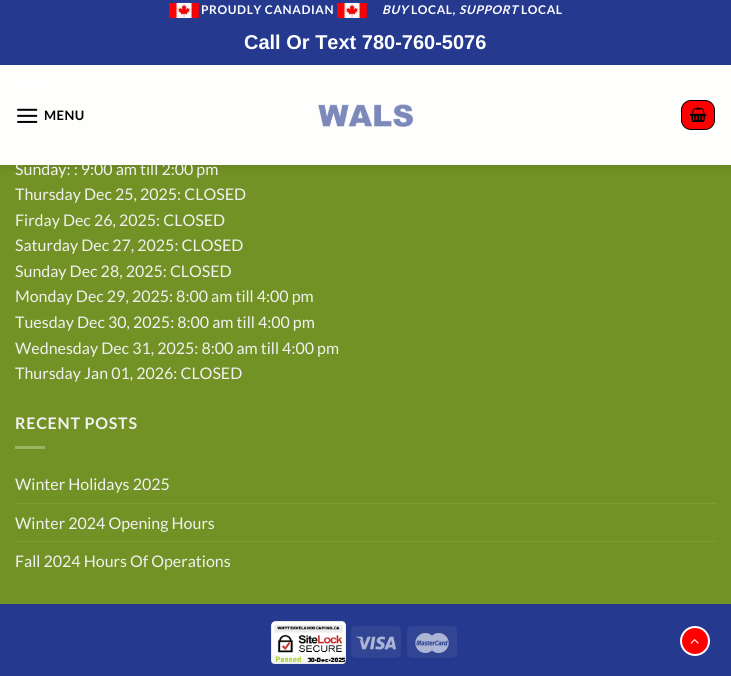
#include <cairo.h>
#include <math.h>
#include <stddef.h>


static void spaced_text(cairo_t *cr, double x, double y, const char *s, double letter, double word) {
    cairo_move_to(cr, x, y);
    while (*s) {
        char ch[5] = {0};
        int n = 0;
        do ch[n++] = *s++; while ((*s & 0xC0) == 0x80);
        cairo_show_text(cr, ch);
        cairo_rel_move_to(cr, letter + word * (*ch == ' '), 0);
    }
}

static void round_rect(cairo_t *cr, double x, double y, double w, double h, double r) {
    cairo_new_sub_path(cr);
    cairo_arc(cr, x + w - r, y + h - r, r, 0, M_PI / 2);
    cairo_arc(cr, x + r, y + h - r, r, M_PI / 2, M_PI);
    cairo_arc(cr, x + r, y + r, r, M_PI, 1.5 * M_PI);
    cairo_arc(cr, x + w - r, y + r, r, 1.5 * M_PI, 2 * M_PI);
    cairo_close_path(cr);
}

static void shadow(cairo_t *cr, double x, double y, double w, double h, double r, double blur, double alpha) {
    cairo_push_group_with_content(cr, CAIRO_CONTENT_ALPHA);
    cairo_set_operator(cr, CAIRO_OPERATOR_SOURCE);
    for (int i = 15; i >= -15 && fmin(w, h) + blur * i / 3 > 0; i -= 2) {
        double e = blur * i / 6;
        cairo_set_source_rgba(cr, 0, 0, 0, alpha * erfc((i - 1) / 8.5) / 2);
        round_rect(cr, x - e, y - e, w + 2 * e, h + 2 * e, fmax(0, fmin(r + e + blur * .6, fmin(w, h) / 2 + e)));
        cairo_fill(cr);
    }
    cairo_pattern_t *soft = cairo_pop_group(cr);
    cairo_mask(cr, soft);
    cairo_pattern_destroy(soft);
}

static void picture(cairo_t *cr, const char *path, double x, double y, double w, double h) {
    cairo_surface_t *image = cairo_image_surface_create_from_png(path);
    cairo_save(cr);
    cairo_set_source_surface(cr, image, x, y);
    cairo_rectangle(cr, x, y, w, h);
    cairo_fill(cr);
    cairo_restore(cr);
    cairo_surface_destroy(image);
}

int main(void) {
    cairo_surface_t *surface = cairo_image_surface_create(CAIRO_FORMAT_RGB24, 731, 676);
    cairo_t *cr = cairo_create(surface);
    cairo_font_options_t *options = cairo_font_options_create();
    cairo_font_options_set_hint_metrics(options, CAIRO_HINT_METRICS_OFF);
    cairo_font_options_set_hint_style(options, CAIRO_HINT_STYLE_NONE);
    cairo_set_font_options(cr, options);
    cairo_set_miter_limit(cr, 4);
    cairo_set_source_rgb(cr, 0.447, 0.573, 0.145);
    cairo_paint(cr);
    cairo_set_source_rgb(cr, 0.612, 0.702, 0.4);
    cairo_rectangle(cr, 15, 85, 30, 3);
    cairo_fill(cr);
    cairo_save(cr);
    cairo_rectangle(cr, 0, 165, 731, 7);
    cairo_clip(cr);
    cairo_set_source_rgb(cr, 0, 0, 0);
    shadow(cr, 1, 1, 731, 165, 0, 5, 0.15);
    cairo_restore(cr);
    cairo_select_font_face(cr, "Lato", CAIRO_FONT_SLANT_NORMAL, CAIRO_FONT_WEIGHT_NORMAL);
    cairo_set_font_size(cr, 16);
    cairo_set_source_rgb(cr, 0.945, 0.945, 0.945);
    cairo_move_to(cr, 15, 175);
    cairo_show_text(cr, "Sunday: : 9:00 am till 2:00 pm");
    cairo_set_source_rgba(cr, 1, 1, 1, 0.9);
    cairo_rectangle(cr, 0, 65, 731, 100);
    cairo_fill(cr);
    cairo_set_source_rgb(cr, 0.145, 0.224, 0.557);
    cairo_rectangle(cr, 0, 0, 731, 65);
    cairo_fill(cr);
    picture(cr, "img1.png", 169, 3, 30, 15);
    cairo_select_font_face(cr, "Lato", CAIRO_FONT_SLANT_NORMAL, CAIRO_FONT_WEIGHT_BOLD);
    cairo_set_font_size(cr, 12);
    cairo_set_source_rgb(cr, 1, 1, 1);
    spaced_text(cr, 201, 14, "PROUDLY CANADIAN", 0.6, 0);
    picture(cr, "img1.png", 337, 3, 30, 15);
    cairo_select_font_face(cr, "Lato", CAIRO_FONT_SLANT_ITALIC, CAIRO_FONT_WEIGHT_BOLD);
    spaced_text(cr, 382, 14, "BUY", 0.6, 0);
    cairo_select_font_face(cr, "Lato", CAIRO_FONT_SLANT_NORMAL, CAIRO_FONT_WEIGHT_BOLD);
    spaced_text(cr, 411, 14, "LOCAL,", 0.6, 0);
    cairo_select_font_face(cr, "Lato", CAIRO_FONT_SLANT_ITALIC, CAIRO_FONT_WEIGHT_BOLD);
    spaced_text(cr, 459, 14, "SUPPORT", 0.6, 0);
    cairo_select_font_face(cr, "Lato", CAIRO_FONT_SLANT_NORMAL, CAIRO_FONT_WEIGHT_BOLD);
    spaced_text(cr, 521, 14, "LOCAL", 0.6, 0);
    cairo_select_font_face(cr, "Liberation Sans", CAIRO_FONT_SLANT_NORMAL, CAIRO_FONT_WEIGHT_BOLD);
    cairo_set_font_size(cr, 20);
    cairo_move_to(cr, 244, 49);
    cairo_show_text(cr, "Call Or Text 780-760-5076");
    cairo_set_source_rgba(cr, 1, 1, 1, 0.9);
    cairo_rectangle(cr, 0, 65, 731, 100);
    cairo_fill(cr);
    picture(cr, "img2.png", 17, 108, 21, 15);
    cairo_select_font_face(cr, "Lato", CAIRO_FONT_SLANT_NORMAL, CAIRO_FONT_WEIGHT_BOLD);
    cairo_set_font_size(cr, 13);
    cairo_set_source_rgb(cr, 0, 0, 0);
    spaced_text(cr, 44, 120, "MENU", 0.5, 0);
    picture(cr, "img3.png", 318, 104, 95, 23);
    cairo_set_source_rgb(cr, 1, 0, 0);
    round_rect(cr, 681.5, 100.5, 33, 29, 9.5);
    cairo_fill_preserve(cr);
    cairo_set_source_rgb(cr, 0, 0, 0);
    cairo_set_line_width(cr, 1);
    cairo_stroke(cr);
    picture(cr, "img4.png", 690, 107, 17, 15);
    cairo_set_source_rgba(cr, 0.467, 0.467, 0.467, 0.1);
    cairo_rectangle(cr, 15, 165, 701, 1);
    cairo_fill(cr);
    cairo_select_font_face(cr, "Lato", CAIRO_FONT_SLANT_NORMAL, CAIRO_FONT_WEIGHT_NORMAL);
    cairo_set_font_size(cr, 16);
    cairo_set_source_rgb(cr, 0.945, 0.945, 0.945);
    cairo_move_to(cr, 15, 200);
    cairo_show_text(cr, "Thursday Dec 25, 2025: CLOSED");
    cairo_move_to(cr, 15, 226);
    cairo_show_text(cr, "Firday Dec 26, 2025: CLOSED");
    cairo_move_to(cr, 15, 251);
    cairo_show_text(cr, "Saturday Dec 27, 2025: CLOSED");
    cairo_move_to(cr, 15, 277);
    cairo_show_text(cr, "Sunday Dec 28, 2025: CLOSED");
    cairo_move_to(cr, 15, 302);
    cairo_show_text(cr, "Monday Dec 29, 2025: 8:00 am till 4:00 pm");
    cairo_move_to(cr, 15, 328);
    cairo_show_text(cr, "Tuesday Dec 30, 2025: 8:00 am till 4:00 pm");
    cairo_move_to(cr, 15, 354);
    cairo_show_text(cr, "Wednesday Dec 31, 2025: 8:00 am till 4:00 pm");
    cairo_move_to(cr, 15, 379);
    cairo_show_text(cr, "Thursday Jan 01, 2026: CLOSED");
    cairo_select_font_face(cr, "Lato", CAIRO_FONT_SLANT_NORMAL, CAIRO_FONT_WEIGHT_BOLD);
    spaced_text(cr, 15, 429, "RECENT POSTS", 0.75, 0);
    cairo_set_source_rgb(cr, 0.612, 0.702, 0.4);
    cairo_rectangle(cr, 15, 446, 30, 3);
    cairo_fill(cr);
    cairo_select_font_face(cr, "Lato", CAIRO_FONT_SLANT_NORMAL, CAIRO_FONT_WEIGHT_NORMAL);
    cairo_set_source_rgb(cr, 0.945, 0.945, 0.945);
    cairo_move_to(cr, 15, 490);
    cairo_show_text(cr, "Winter Holidays 2025");
    cairo_set_source_rgb(cr, 0.49, 0.608, 0.212);
    cairo_rectangle(cr, 15, 503, 701, 1);
    cairo_fill(cr);
    cairo_set_source_rgb(cr, 0.945, 0.945, 0.945);
    cairo_move_to(cr, 15, 529);
    cairo_show_text(cr, "Winter 2024 Opening Hours");
    cairo_set_source_rgb(cr, 0.49, 0.608, 0.212);
    cairo_rectangle(cr, 15, 541, 701, 1);
    cairo_fill(cr);
    cairo_set_source_rgb(cr, 0.945, 0.945, 0.945);
    cairo_move_to(cr, 15, 567);
    cairo_show_text(cr, "Fall 2024 Hours Of Operations");
    cairo_set_source_rgb(cr, 0.145, 0.224, 0.557);
    cairo_rectangle(cr, 0, 604, 731, 72);
    cairo_fill(cr);
    picture(cr, "img5.png", 271, 621, 75, 43);
    cairo_set_source_rgb(cr, 0.196, 0.271, 0.584);
    round_rect(cr, 351, 626, 50, 32, 5);
    cairo_fill(cr);
    picture(cr, "img6.png", 356, 636, 40, 14);
    round_rect(cr, 407, 626, 50, 32, 5);
    cairo_fill(cr);
    picture(cr, "img7.png", 415, 633, 34, 20);
    cairo_set_source_rgb(cr, 1, 0, 0);
    cairo_arc(cr, 695, 641, 14, 0, 2 * M_PI);
    cairo_fill_preserve(cr);
    cairo_set_source_rgb(cr, 1, 1, 1);
    cairo_set_line_width(cr, 2);
    cairo_stroke(cr);
    picture(cr, "img8.png", 690, 639, 9, 5);
    cairo_surface_write_to_png(surface, "page.png");
    cairo_font_options_destroy(options);
    cairo_destroy(cr);
    cairo_surface_destroy(surface);
    return 0;
}
